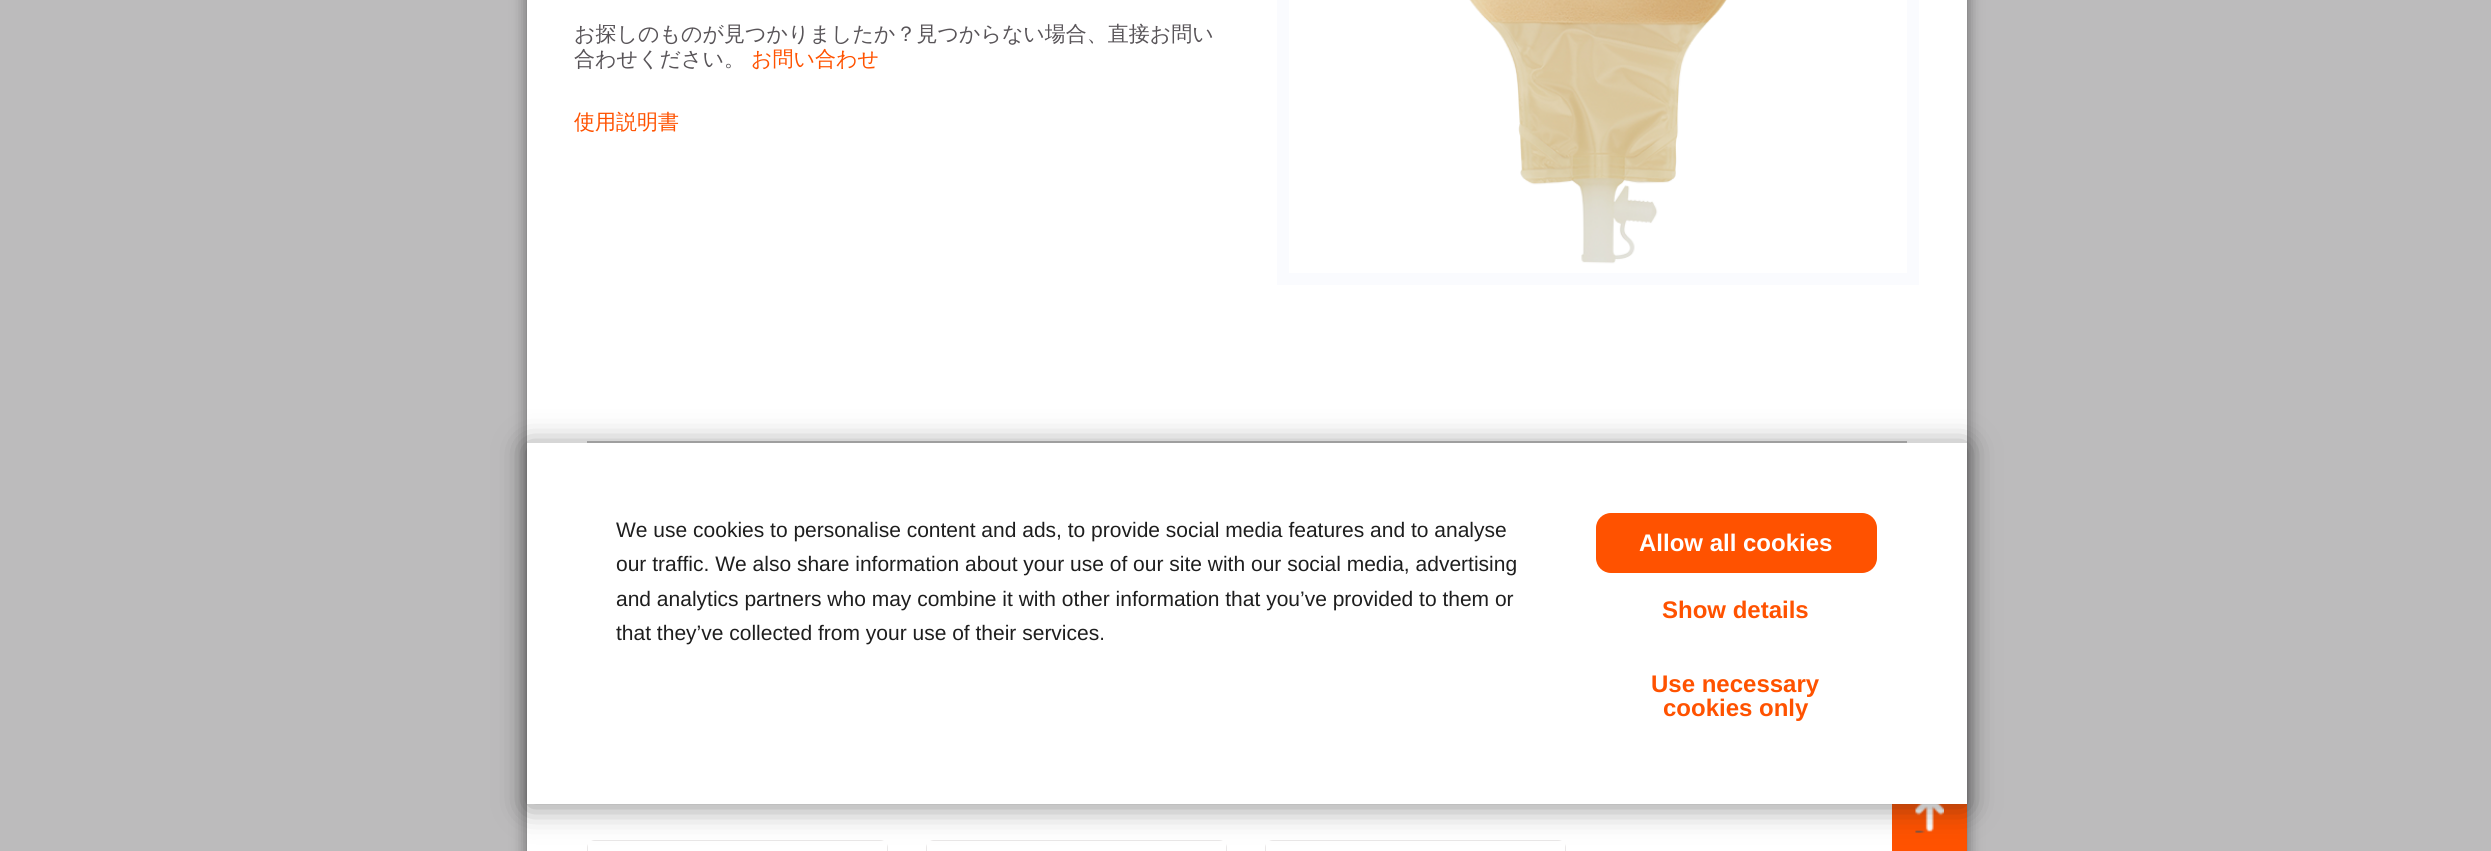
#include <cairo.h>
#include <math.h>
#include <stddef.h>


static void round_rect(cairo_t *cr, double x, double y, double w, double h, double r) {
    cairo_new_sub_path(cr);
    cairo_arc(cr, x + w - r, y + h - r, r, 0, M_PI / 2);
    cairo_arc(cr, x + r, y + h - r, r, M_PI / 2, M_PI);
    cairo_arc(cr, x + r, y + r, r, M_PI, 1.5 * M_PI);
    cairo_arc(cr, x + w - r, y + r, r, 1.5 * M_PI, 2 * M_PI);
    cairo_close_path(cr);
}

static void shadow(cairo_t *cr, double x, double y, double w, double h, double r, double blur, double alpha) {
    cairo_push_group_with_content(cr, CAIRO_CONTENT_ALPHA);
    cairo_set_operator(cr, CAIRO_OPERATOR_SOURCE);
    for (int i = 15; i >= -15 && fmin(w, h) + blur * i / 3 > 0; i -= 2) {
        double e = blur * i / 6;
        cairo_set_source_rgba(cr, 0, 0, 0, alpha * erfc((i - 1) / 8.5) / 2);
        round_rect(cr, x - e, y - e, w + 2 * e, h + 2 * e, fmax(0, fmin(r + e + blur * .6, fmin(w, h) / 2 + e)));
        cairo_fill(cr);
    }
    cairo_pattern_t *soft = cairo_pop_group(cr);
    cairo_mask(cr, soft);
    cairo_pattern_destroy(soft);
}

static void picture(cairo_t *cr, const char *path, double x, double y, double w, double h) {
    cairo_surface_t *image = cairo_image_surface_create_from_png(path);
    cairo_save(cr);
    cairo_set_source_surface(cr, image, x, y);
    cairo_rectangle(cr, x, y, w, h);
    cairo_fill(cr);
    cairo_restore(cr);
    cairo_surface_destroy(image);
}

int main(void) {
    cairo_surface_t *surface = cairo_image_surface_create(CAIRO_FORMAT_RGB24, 2491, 851);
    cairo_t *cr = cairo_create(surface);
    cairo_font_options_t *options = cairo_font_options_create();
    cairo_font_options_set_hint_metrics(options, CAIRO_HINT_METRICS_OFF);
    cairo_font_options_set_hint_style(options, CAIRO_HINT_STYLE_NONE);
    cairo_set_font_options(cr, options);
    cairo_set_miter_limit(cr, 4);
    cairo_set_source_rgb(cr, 0.737, 0.733, 0.737);
    cairo_paint(cr);
    cairo_set_source_rgb(cr, 0.141, 0.141, 0.141);
    shadow(cr, 527, -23, 1440, 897, 0, 7.5, 0.6);
    cairo_set_source_rgb(cr, 1, 1, 1);
    cairo_rectangle(cr, 527, 0, 1440, 851);
    cairo_fill(cr);
    cairo_select_font_face(cr, "WenQuanYi Zen Hei Medium", CAIRO_FONT_SLANT_NORMAL, CAIRO_FONT_WEIGHT_NORMAL);
    cairo_set_font_size(cr, 21);
    cairo_set_source_rgb(cr, 0.345, 0.329, 0.345);
    cairo_move_to(cr, 574, 41);
    cairo_show_text(cr, "お探しのものが見つかりましたか？見つからない場合、直接お問い");
    cairo_move_to(cr, 574, 66);
    cairo_show_text(cr, "合わせください。");
    cairo_set_source_rgb(cr, 1, 0.322, 0);
    cairo_move_to(cr, 751, 66);
    cairo_show_text(cr, "お問い合わせ");
    cairo_move_to(cr, 574, 129);
    cairo_show_text(cr, "使用説明書");
    cairo_set_source_rgb(cr, 0.98, 0.984, 0.996);
    cairo_rectangle(cr, 1277, 0, 642, 285);
    cairo_fill(cr);
    cairo_set_source_rgb(cr, 1, 1, 1);
    cairo_rectangle(cr, 1289, 0, 618, 273);
    cairo_fill(cr);
    picture(cr, "img1.png", 1469, 0, 258, 264);
    cairo_set_source_rgb(cr, 0.737, 0.733, 0.737);
    cairo_rectangle(cr, 587, 441, 1320, 2);
    cairo_fill(cr);
    round_rect(cr, 588, 841, 299, 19, 7);
    cairo_set_source_rgb(cr, 0.914, 0.906, 0.906);
    cairo_stroke(cr);
    cairo_set_source_rgb(cr, 1, 1, 1);
    cairo_rectangle(cr, 588, 841, 299, 10);
    cairo_fill(cr);
    round_rect(cr, 927, 841, 299, 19, 7);
    cairo_set_source_rgb(cr, 0.914, 0.906, 0.906);
    cairo_stroke(cr);
    cairo_set_source_rgb(cr, 1, 1, 1);
    cairo_rectangle(cr, 927, 841, 299, 10);
    cairo_fill(cr);
    round_rect(cr, 1266, 841, 299, 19, 7);
    cairo_set_source_rgb(cr, 0.914, 0.906, 0.906);
    cairo_stroke(cr);
    cairo_set_source_rgb(cr, 1, 1, 1);
    cairo_rectangle(cr, 1266, 841, 299, 10);
    cairo_fill(cr);
    cairo_set_source_rgb(cr, 1, 0.322, 0);
    cairo_rectangle(cr, 1892, 804, 75, 47);
    cairo_fill(cr);
    picture(cr, "img2.png", 1915, 804, 29, 29);
    cairo_set_source_rgb(cr, 0.129, 0.129, 0.129);
    shadow(cr, 527, 446, 1440, 361, 0, 15, 0.5);
    cairo_set_source_rgb(cr, 1, 1, 1);
    cairo_rectangle(cr, 527, 443, 1440, 361);
    cairo_fill(cr);
    cairo_select_font_face(cr, "Liberation Sans", CAIRO_FONT_SLANT_NORMAL, CAIRO_FONT_WEIGHT_NORMAL);
    cairo_set_source_rgb(cr, 0.118, 0.118, 0.118);
    cairo_move_to(cr, 616, 537);
    cairo_show_text(cr, "We use cookies to personalise content and ads, to provide social media features and to analyse");
    cairo_move_to(cr, 616, 571);
    cairo_show_text(cr, "our traffic. We also share information about your use of our site with our social media, advertising");
    cairo_move_to(cr, 616, 606);
    cairo_show_text(cr, "and analytics partners who may combine it with other information that you’ve provided to them or");
    cairo_move_to(cr, 616, 640);
    cairo_show_text(cr, "that they’ve collected from your use of their services.");
    cairo_set_source_rgb(cr, 1, 0.322, 0);
    round_rect(cr, 1596, 513, 281, 60, 15);
    cairo_fill(cr);
    cairo_select_font_face(cr, "Liberation Sans", CAIRO_FONT_SLANT_NORMAL, CAIRO_FONT_WEIGHT_BOLD);
    cairo_set_font_size(cr, 24);
    cairo_set_source_rgb(cr, 1, 1, 1);
    cairo_move_to(cr, 1639, 551);
    cairo_show_text(cr, "Allow all cookies");
    cairo_set_source_rgb(cr, 1, 0.322, 0);
    cairo_move_to(cr, 1662, 618);
    cairo_show_text(cr, "Show details");
    cairo_move_to(cr, 1651, 692);
    cairo_show_text(cr, "Use necessary");
    cairo_move_to(cr, 1663, 716);
    cairo_show_text(cr, "cookies only");
    cairo_surface_write_to_png(surface, "page.png");
    cairo_font_options_destroy(options);
    cairo_destroy(cr);
    cairo_surface_destroy(surface);
    return 0;
}
